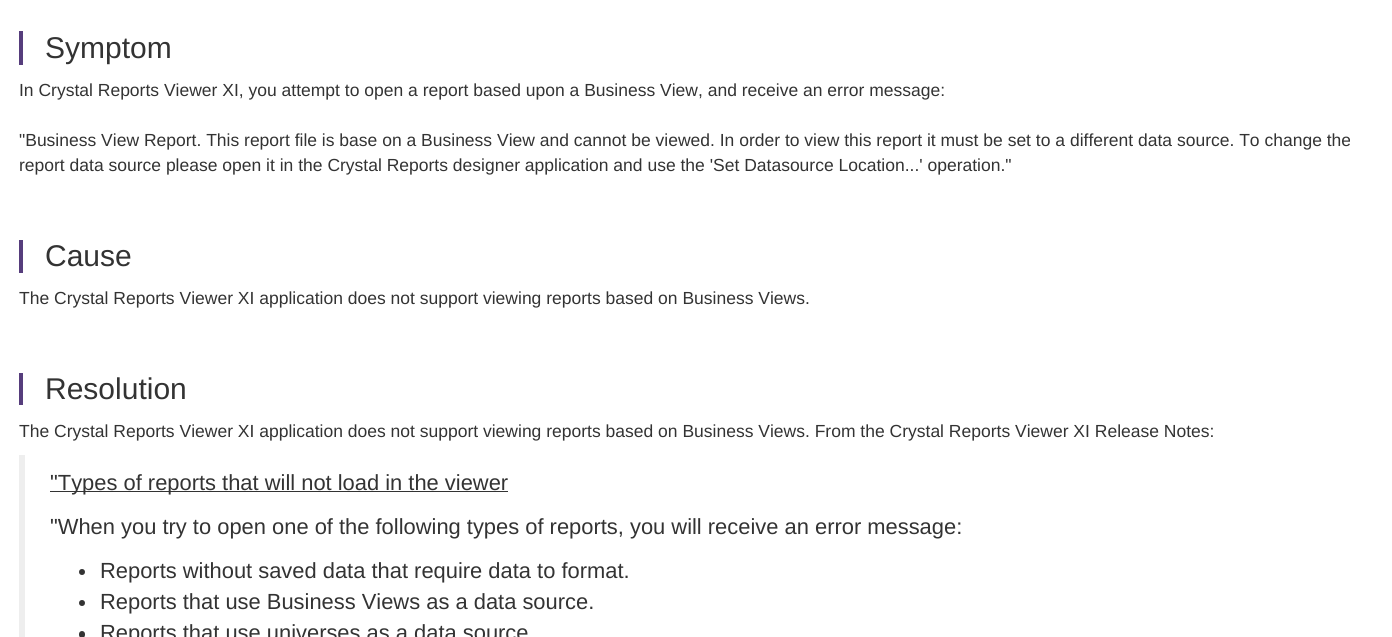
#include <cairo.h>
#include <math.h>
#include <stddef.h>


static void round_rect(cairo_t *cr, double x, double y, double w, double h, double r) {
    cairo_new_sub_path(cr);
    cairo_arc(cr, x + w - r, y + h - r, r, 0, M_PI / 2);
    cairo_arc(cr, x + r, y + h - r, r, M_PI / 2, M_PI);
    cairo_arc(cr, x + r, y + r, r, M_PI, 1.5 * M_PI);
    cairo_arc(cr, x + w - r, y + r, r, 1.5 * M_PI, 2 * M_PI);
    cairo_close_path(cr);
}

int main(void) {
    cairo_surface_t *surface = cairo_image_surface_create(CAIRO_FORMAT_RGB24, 1392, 637);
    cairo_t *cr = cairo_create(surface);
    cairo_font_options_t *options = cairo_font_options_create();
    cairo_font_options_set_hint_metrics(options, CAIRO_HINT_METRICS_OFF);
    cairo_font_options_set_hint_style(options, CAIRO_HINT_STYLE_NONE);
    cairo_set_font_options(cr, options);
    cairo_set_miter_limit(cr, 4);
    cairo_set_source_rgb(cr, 1, 1, 1);
    cairo_paint(cr);
    cairo_set_source_rgb(cr, 0.337, 0.239, 0.486);
    cairo_rectangle(cr, 19, 31, 4, 34);
    cairo_fill(cr);
    cairo_select_font_face(cr, "Liberation Sans", CAIRO_FONT_SLANT_NORMAL, CAIRO_FONT_WEIGHT_NORMAL);
    cairo_set_font_size(cr, 30);
    cairo_set_source_rgb(cr, 0.2, 0.2, 0.2);
    cairo_move_to(cr, 45, 58);
    cairo_show_text(cr, "Symptom");
    cairo_set_font_size(cr, 17.5);
    cairo_move_to(cr, 19, 96);
    cairo_show_text(cr, "In Crystal Reports Viewer XI, you attempt to open a report based upon a Business View, and receive an error message:");
    cairo_move_to(cr, 19, 146);
    cairo_show_text(cr, "\"Business View Report. This report file is base on a Business View and cannot be viewed. In order to view this report it must be set to a different data source. To change the");
    cairo_move_to(cr, 19, 171);
    cairo_show_text(cr, "report data source please open it in the Crystal Reports designer application and use the 'Set Datasource Location...' operation.\"");
    cairo_set_source_rgb(cr, 0.337, 0.239, 0.486);
    cairo_rectangle(cr, 19, 240, 4, 33);
    cairo_fill(cr);
    cairo_set_font_size(cr, 30);
    cairo_set_source_rgb(cr, 0.2, 0.2, 0.2);
    cairo_move_to(cr, 45, 266);
    cairo_show_text(cr, "Cause");
    cairo_set_font_size(cr, 17.5);
    cairo_move_to(cr, 19, 304);
    cairo_show_text(cr, "The Crystal Reports Viewer XI application does not support viewing reports based on Business Views.");
    cairo_set_source_rgb(cr, 0.337, 0.239, 0.486);
    cairo_rectangle(cr, 19, 373, 4, 32);
    cairo_fill(cr);
    cairo_set_font_size(cr, 30);
    cairo_set_source_rgb(cr, 0.2, 0.2, 0.2);
    cairo_move_to(cr, 45, 399);
    cairo_show_text(cr, "Resolution");
    cairo_set_font_size(cr, 17.5);
    cairo_move_to(cr, 19, 437);
    cairo_show_text(cr, "The Crystal Reports Viewer XI application does not support viewing reports based on Business Views. From the Crystal Reports Viewer XI Release Notes:");
    cairo_set_source_rgb(cr, 0.933, 0.933, 0.933);
    cairo_rectangle(cr, 19, 455, 6, 182);
    cairo_fill(cr);
    cairo_set_source_rgb(cr, 0.2, 0.2, 0.2);
    cairo_rectangle(cr, 50, 491, 458, 1);
    cairo_fill(cr);
    cairo_set_font_size(cr, 21.9);
    cairo_move_to(cr, 50, 490);
    cairo_show_text(cr, "\"Types of reports that will not load in the viewer");
    cairo_move_to(cr, 50, 534);
    cairo_show_text(cr, "\"When you try to open one of the following types of reports, you will receive an error message:");
    cairo_new_path(cr);
    cairo_arc(cr, 82, 572, 3, 0, 2 * M_PI);
    cairo_fill(cr);
    cairo_move_to(cr, 100, 578);
    cairo_show_text(cr, "Reports without saved data that require data to format.");
    cairo_new_path(cr);
    cairo_arc(cr, 82, 603, 3, 0, 2 * M_PI);
    cairo_fill(cr);
    cairo_move_to(cr, 100, 609);
    cairo_show_text(cr, "Reports that use Business Views as a data source.");
    round_rect(cr, 79, 631, 6, 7, 3);
    cairo_fill(cr);
    cairo_move_to(cr, 100, 640);
    cairo_show_text(cr, "Reports that use universes as a data source");
    cairo_surface_write_to_png(surface, "page.png");
    cairo_font_options_destroy(options);
    cairo_destroy(cr);
    cairo_surface_destroy(surface);
    return 0;
}
